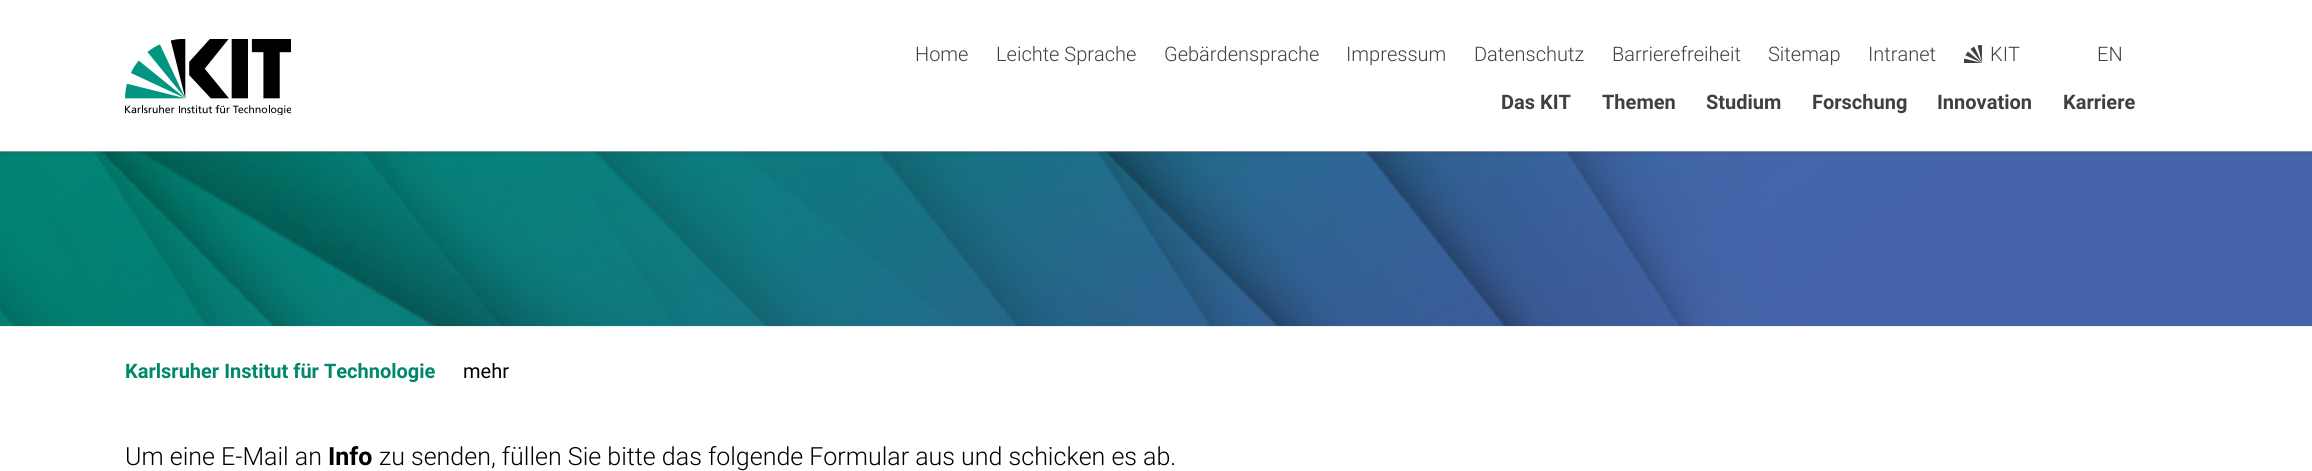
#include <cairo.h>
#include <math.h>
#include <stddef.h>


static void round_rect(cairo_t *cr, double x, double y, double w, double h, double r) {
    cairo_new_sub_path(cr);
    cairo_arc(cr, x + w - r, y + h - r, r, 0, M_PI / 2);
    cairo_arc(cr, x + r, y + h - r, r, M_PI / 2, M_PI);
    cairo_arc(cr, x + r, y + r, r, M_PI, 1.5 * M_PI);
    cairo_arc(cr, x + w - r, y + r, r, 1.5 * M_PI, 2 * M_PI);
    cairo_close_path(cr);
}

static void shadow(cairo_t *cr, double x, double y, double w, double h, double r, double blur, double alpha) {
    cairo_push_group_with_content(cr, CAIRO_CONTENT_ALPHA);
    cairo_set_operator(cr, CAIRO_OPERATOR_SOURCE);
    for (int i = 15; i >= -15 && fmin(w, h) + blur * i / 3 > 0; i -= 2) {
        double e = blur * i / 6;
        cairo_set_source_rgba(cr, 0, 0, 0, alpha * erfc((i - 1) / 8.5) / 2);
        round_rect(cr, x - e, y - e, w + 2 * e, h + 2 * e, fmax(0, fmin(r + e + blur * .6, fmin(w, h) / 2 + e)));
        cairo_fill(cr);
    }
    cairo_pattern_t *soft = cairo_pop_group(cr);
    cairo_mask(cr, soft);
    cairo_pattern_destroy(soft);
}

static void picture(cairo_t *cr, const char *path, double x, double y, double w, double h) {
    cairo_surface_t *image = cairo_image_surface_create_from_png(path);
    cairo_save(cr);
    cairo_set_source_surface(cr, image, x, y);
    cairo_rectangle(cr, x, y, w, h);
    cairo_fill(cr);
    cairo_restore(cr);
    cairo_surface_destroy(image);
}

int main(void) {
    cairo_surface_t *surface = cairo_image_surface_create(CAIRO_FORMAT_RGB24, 2312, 471);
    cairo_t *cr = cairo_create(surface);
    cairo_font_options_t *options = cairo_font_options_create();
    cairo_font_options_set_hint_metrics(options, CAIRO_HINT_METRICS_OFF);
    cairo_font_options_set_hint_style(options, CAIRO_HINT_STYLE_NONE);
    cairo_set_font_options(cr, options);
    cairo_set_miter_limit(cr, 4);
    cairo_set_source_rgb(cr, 1, 1, 1);
    cairo_paint(cr);
    picture(cr, "img3.png", 0, 151, 2312, 176);
    cairo_save(cr);
    cairo_rectangle(cr, 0, 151, 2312, 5);
    cairo_clip(cr);
    cairo_set_source_rgb(cr, 0.251, 0.251, 0.251);
    shadow(cr, 0, 0, 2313, 151, 0, 3, 0.5);
    cairo_restore(cr);
    picture(cr, "img1.png", 125, 39, 166, 76);
    cairo_select_font_face(cr, "Roboto Light", CAIRO_FONT_SLANT_NORMAL, CAIRO_FONT_WEIGHT_NORMAL);
    cairo_set_font_size(cr, 20);
    cairo_set_source_rgb(cr, 0.251, 0.251, 0.251);
    cairo_move_to(cr, 915, 61);
    cairo_show_text(cr, "Home");
    cairo_move_to(cr, 996, 61);
    cairo_show_text(cr, "Leichte Sprache");
    cairo_move_to(cr, 1164, 61);
    cairo_show_text(cr, "Gebärdensprache");
    cairo_move_to(cr, 1346, 61);
    cairo_show_text(cr, "Impressum");
    cairo_move_to(cr, 1474, 61);
    cairo_show_text(cr, "Datenschutz");
    cairo_move_to(cr, 1612, 61);
    cairo_show_text(cr, "Barrierefreiheit");
    cairo_move_to(cr, 1768, 61);
    cairo_show_text(cr, "Sitemap");
    cairo_move_to(cr, 1868, 61);
    cairo_show_text(cr, "Intranet");
    picture(cr, "img2.png", 1964, 45, 18, 18);
    cairo_move_to(cr, 1990, 61);
    cairo_show_text(cr, "KIT");
    cairo_move_to(cr, 2097, 61);
    cairo_show_text(cr, "EN");
    cairo_select_font_face(cr, "Roboto", CAIRO_FONT_SLANT_NORMAL, CAIRO_FONT_WEIGHT_BOLD);
    cairo_move_to(cr, 1501, 109);
    cairo_show_text(cr, "Das KIT");
    cairo_move_to(cr, 1602, 109);
    cairo_show_text(cr, "Themen");
    cairo_move_to(cr, 1706, 109);
    cairo_show_text(cr, "Studium");
    cairo_move_to(cr, 1812, 109);
    cairo_show_text(cr, "Forschung");
    cairo_move_to(cr, 1937, 109);
    cairo_show_text(cr, "Innovation");
    cairo_move_to(cr, 2063, 109);
    cairo_show_text(cr, "Karriere");
    cairo_set_source_rgb(cr, 0, 0.529, 0.424);
    cairo_move_to(cr, 125, 378);
    cairo_show_text(cr, "Karlsruher Institut für Technologie");
    cairo_select_font_face(cr, "Roboto", CAIRO_FONT_SLANT_NORMAL, CAIRO_FONT_WEIGHT_NORMAL);
    cairo_set_source_rgb(cr, 0, 0, 0);
    cairo_move_to(cr, 463, 378);
    cairo_show_text(cr, "mehr");
    cairo_select_font_face(cr, "Roboto Light", CAIRO_FONT_SLANT_NORMAL, CAIRO_FONT_WEIGHT_NORMAL);
    cairo_set_font_size(cr, 25);
    cairo_move_to(cr, 125, 465);
    cairo_show_text(cr, "Um eine E-Mail an");
    cairo_select_font_face(cr, "Roboto", CAIRO_FONT_SLANT_NORMAL, CAIRO_FONT_WEIGHT_BOLD);
    cairo_move_to(cr, 328, 465);
    cairo_show_text(cr, "Info");
    cairo_select_font_face(cr, "Roboto Light", CAIRO_FONT_SLANT_NORMAL, CAIRO_FONT_WEIGHT_NORMAL);
    cairo_move_to(cr, 379, 465);
    cairo_show_text(cr, "zu senden, füllen Sie bitte das folgende Formular aus und schicken es ab.");
    cairo_surface_write_to_png(surface, "page.png");
    cairo_font_options_destroy(options);
    cairo_destroy(cr);
    cairo_surface_destroy(surface);
    return 0;
}
